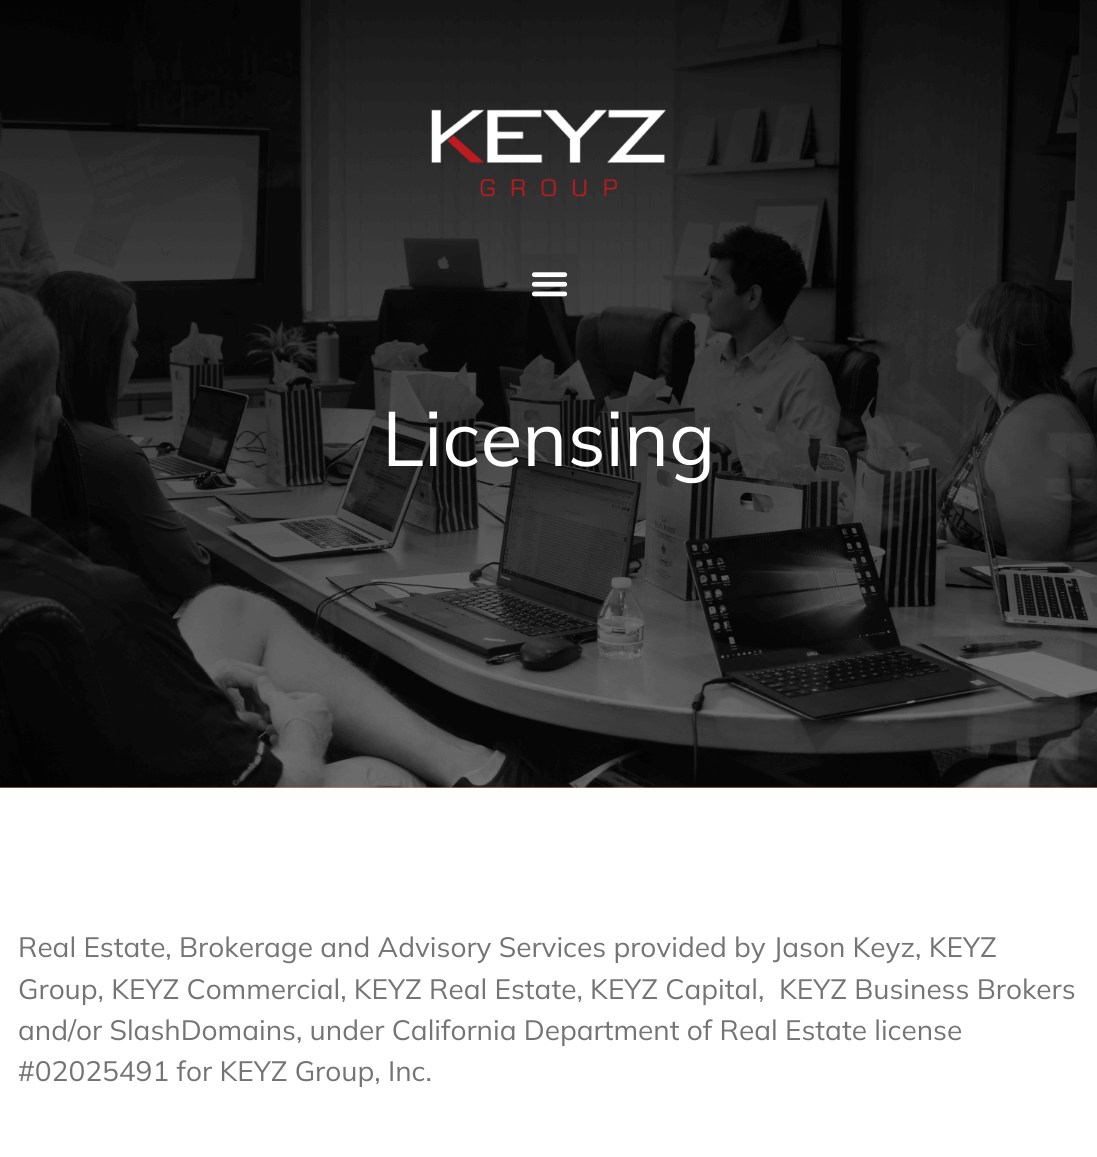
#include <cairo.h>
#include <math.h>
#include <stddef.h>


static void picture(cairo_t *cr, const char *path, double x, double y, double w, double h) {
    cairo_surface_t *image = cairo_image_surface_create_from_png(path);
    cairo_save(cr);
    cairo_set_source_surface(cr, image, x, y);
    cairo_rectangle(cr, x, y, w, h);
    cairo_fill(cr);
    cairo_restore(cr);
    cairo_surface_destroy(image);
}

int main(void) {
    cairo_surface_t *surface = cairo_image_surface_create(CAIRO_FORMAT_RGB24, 1097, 1157);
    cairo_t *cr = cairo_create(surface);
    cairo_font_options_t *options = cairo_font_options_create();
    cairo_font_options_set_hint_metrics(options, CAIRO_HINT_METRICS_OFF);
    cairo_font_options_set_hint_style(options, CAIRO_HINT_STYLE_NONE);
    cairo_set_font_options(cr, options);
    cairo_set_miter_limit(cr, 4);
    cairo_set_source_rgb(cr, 1, 1, 1);
    cairo_paint(cr);
    cairo_set_source_rgb(cr, 1, 0.604, 0.408);
    cairo_rectangle(cr, 0, 787, 1097, 1);
    cairo_fill(cr);
    picture(cr, "img3.png", 0, 0, 1097, 788);
    picture(cr, "img1.png", 431, 109, 235, 88);
    cairo_set_source_rgba(cr, 0, 0, 0, 0.05);
    cairo_rectangle(cr, 520, 254, 58, 58);
    cairo_fill(cr);
    picture(cr, "img2.png", 531, 272, 37, 25);
    cairo_select_font_face(cr, "Mulish", CAIRO_FONT_SLANT_NORMAL, CAIRO_FONT_WEIGHT_NORMAL);
    cairo_set_font_size(cr, 77);
    cairo_set_source_rgb(cr, 1, 1, 1);
    cairo_move_to(cr, 382, 466);
    cairo_show_text(cr, "Licensing");
    cairo_set_font_size(cr, 28);
    cairo_set_source_rgb(cr, 0.455, 0.455, 0.455);
    cairo_move_to(cr, 18, 957);
    cairo_show_text(cr, "Real Estate, Brokerage and Advisory Services provided by Jason Keyz, KEYZ");
    cairo_move_to(cr, 18, 999);
    cairo_show_text(cr, "Group, KEYZ Commercial, KEYZ Real Estate, KEYZ Capital,  KEYZ Business Brokers");
    cairo_move_to(cr, 18, 1040);
    cairo_show_text(cr, "and/or SlashDomains, under California Department of Real Estate license");
    cairo_move_to(cr, 18, 1081);
    cairo_show_text(cr, "#02025491 for KEYZ Group, Inc.");
    cairo_surface_write_to_png(surface, "page.png");
    cairo_font_options_destroy(options);
    cairo_destroy(cr);
    cairo_surface_destroy(surface);
    return 0;
}
